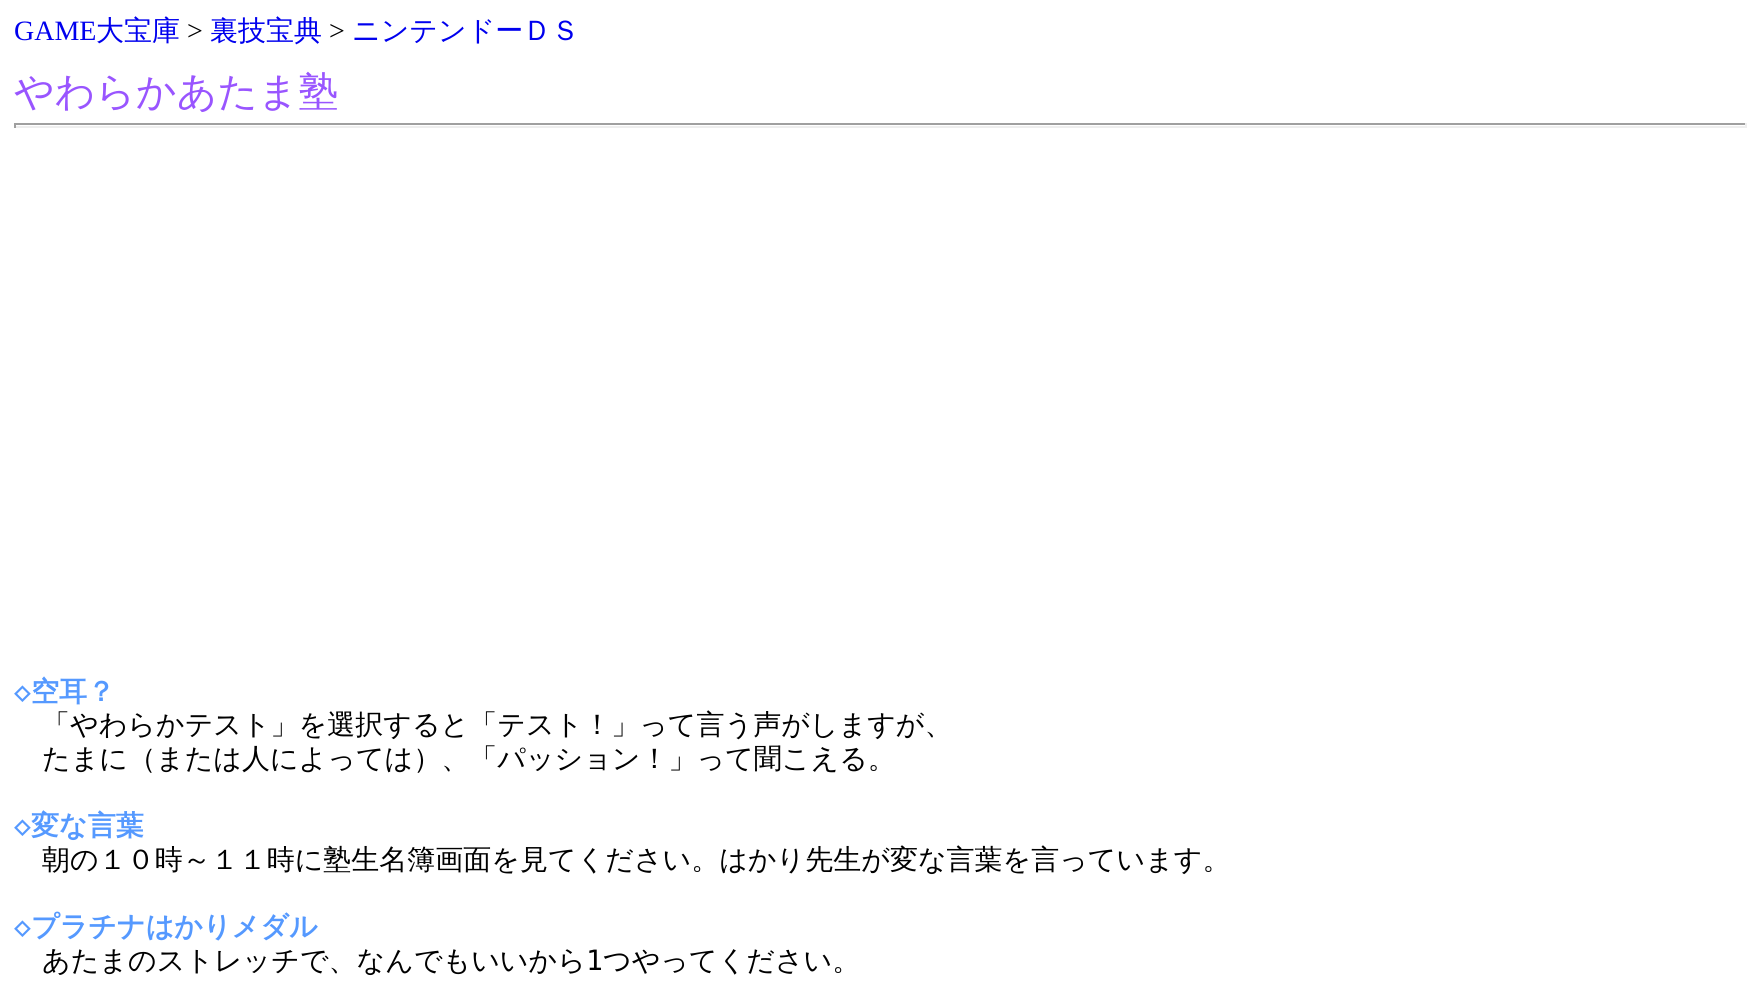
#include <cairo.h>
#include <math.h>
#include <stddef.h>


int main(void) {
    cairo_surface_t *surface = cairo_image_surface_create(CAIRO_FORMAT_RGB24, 1759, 992);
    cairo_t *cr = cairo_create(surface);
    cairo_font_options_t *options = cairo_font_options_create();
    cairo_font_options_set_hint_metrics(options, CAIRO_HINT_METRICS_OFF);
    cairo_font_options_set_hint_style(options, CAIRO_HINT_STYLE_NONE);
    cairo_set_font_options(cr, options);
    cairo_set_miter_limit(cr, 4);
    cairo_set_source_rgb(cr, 1, 1, 1);
    cairo_paint(cr);
    cairo_select_font_face(cr, "Liberation Serif", CAIRO_FONT_SLANT_NORMAL, CAIRO_FONT_WEIGHT_NORMAL);
    cairo_set_font_size(cr, 28);
    cairo_set_source_rgb(cr, 0, 0, 0.933);
    cairo_move_to(cr, 14, 40);
    cairo_show_text(cr, "GAME");
    cairo_select_font_face(cr, "WenQuanYi Zen Hei Medium", CAIRO_FONT_SLANT_NORMAL, CAIRO_FONT_WEIGHT_NORMAL);
    cairo_move_to(cr, 96, 40);
    cairo_show_text(cr, "大宝庫");
    cairo_select_font_face(cr, "Liberation Serif", CAIRO_FONT_SLANT_NORMAL, CAIRO_FONT_WEIGHT_NORMAL);
    cairo_set_source_rgb(cr, 0, 0, 0);
    cairo_move_to(cr, 187, 40);
    cairo_show_text(cr, ">");
    cairo_select_font_face(cr, "WenQuanYi Zen Hei Medium", CAIRO_FONT_SLANT_NORMAL, CAIRO_FONT_WEIGHT_NORMAL);
    cairo_set_source_rgb(cr, 0, 0, 0.933);
    cairo_move_to(cr, 210, 40);
    cairo_show_text(cr, "裏技宝典");
    cairo_select_font_face(cr, "Liberation Serif", CAIRO_FONT_SLANT_NORMAL, CAIRO_FONT_WEIGHT_NORMAL);
    cairo_set_source_rgb(cr, 0, 0, 0);
    cairo_move_to(cr, 329, 40);
    cairo_show_text(cr, ">");
    cairo_select_font_face(cr, "WenQuanYi Zen Hei Medium", CAIRO_FONT_SLANT_NORMAL, CAIRO_FONT_WEIGHT_NORMAL);
    cairo_set_source_rgb(cr, 0, 0, 0.933);
    cairo_move_to(cr, 352, 40);
    cairo_show_text(cr, "ニンテンドーＤＳ");
    cairo_set_font_size(cr, 39.75);
    cairo_set_source_rgb(cr, 0.6, 0.333, 1);
    cairo_move_to(cr, 14, 105);
    cairo_show_text(cr, "やわらかあたま塾");
    cairo_set_source_rgb(cr, 0.624, 0.624, 0.624);
    cairo_rectangle(cr, 14, 123, 1733, 2);
    cairo_fill(cr);
    cairo_set_source_rgb(cr, 0.933, 0.933, 0.933);
    cairo_rectangle(cr, 1745, 123, 2, 5);
    cairo_fill(cr);
    cairo_rectangle(cr, 14, 126, 1733, 2);
    cairo_fill(cr);
    cairo_set_source_rgb(cr, 0.624, 0.624, 0.624);
    cairo_rectangle(cr, 14, 123, 2, 5);
    cairo_fill(cr);
    cairo_select_font_face(cr, "DejaVu Sans Mono", CAIRO_FONT_SLANT_NORMAL, CAIRO_FONT_WEIGHT_BOLD);
    cairo_set_font_size(cr, 28);
    cairo_set_source_rgb(cr, 0.333, 0.6, 1);
    cairo_move_to(cr, 14, 701);
    cairo_show_text(cr, "◇");
    cairo_select_font_face(cr, "WenQuanYi Zen Hei", CAIRO_FONT_SLANT_NORMAL, CAIRO_FONT_WEIGHT_BOLD);
    cairo_move_to(cr, 31, 701);
    cairo_show_text(cr, "空耳？");
    cairo_select_font_face(cr, "WenQuanYi Zen Hei Medium", CAIRO_FONT_SLANT_NORMAL, CAIRO_FONT_WEIGHT_NORMAL);
    cairo_set_source_rgb(cr, 0, 0, 0);
    cairo_move_to(cr, 42, 734);
    cairo_show_text(cr, "「やわらかテスト」を選択すると「テスト！」って言う声がしますが、");
    cairo_move_to(cr, 42, 768);
    cairo_show_text(cr, "たまに（または人によっては）、「パッション！」って聞こえる。");
    cairo_select_font_face(cr, "DejaVu Sans Mono", CAIRO_FONT_SLANT_NORMAL, CAIRO_FONT_WEIGHT_BOLD);
    cairo_set_source_rgb(cr, 0.333, 0.6, 1);
    cairo_move_to(cr, 14, 835);
    cairo_show_text(cr, "◇");
    cairo_select_font_face(cr, "WenQuanYi Zen Hei", CAIRO_FONT_SLANT_NORMAL, CAIRO_FONT_WEIGHT_BOLD);
    cairo_move_to(cr, 31, 835);
    cairo_show_text(cr, "変な言葉");
    cairo_select_font_face(cr, "WenQuanYi Zen Hei Medium", CAIRO_FONT_SLANT_NORMAL, CAIRO_FONT_WEIGHT_NORMAL);
    cairo_set_source_rgb(cr, 0, 0, 0);
    cairo_move_to(cr, 42, 869);
    cairo_show_text(cr, "朝の１０時～１１時に塾生名簿画面を見てください。はかり先生が変な言葉を言っています。");
    cairo_select_font_face(cr, "DejaVu Sans Mono", CAIRO_FONT_SLANT_NORMAL, CAIRO_FONT_WEIGHT_BOLD);
    cairo_set_source_rgb(cr, 0.333, 0.6, 1);
    cairo_move_to(cr, 14, 936);
    cairo_show_text(cr, "◇");
    cairo_select_font_face(cr, "WenQuanYi Zen Hei", CAIRO_FONT_SLANT_NORMAL, CAIRO_FONT_WEIGHT_BOLD);
    cairo_move_to(cr, 31, 936);
    cairo_show_text(cr, "プラチナはかりメダル");
    cairo_select_font_face(cr, "WenQuanYi Zen Hei Medium", CAIRO_FONT_SLANT_NORMAL, CAIRO_FONT_WEIGHT_NORMAL);
    cairo_set_source_rgb(cr, 0, 0, 0);
    cairo_move_to(cr, 42, 970);
    cairo_show_text(cr, "あたまのストレッチで、なんでもいいから");
    cairo_select_font_face(cr, "DejaVu Sans Mono", CAIRO_FONT_SLANT_NORMAL, CAIRO_FONT_WEIGHT_NORMAL);
    cairo_move_to(cr, 586, 970);
    cairo_show_text(cr, "1");
    cairo_select_font_face(cr, "WenQuanYi Zen Hei Medium", CAIRO_FONT_SLANT_NORMAL, CAIRO_FONT_WEIGHT_NORMAL);
    cairo_move_to(cr, 603, 970);
    cairo_show_text(cr, "つやってください。");
    cairo_surface_write_to_png(surface, "page.png");
    cairo_font_options_destroy(options);
    cairo_destroy(cr);
    cairo_surface_destroy(surface);
    return 0;
}
